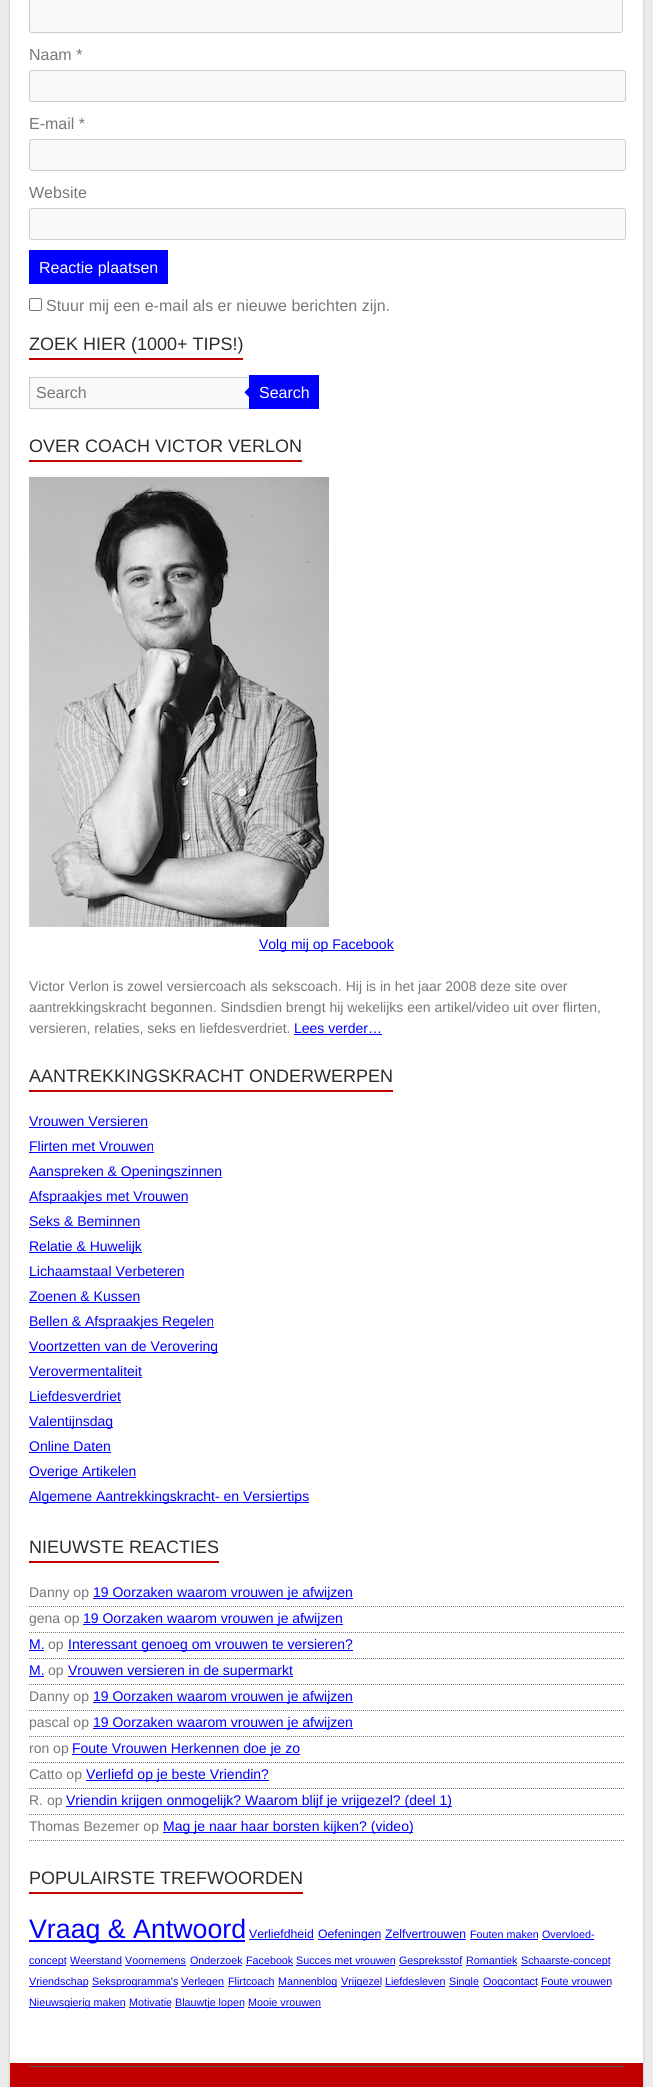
#include <cairo.h>
#include <math.h>
#include <stddef.h>


static void round_rect(cairo_t *cr, double x, double y, double w, double h, double r) {
    cairo_new_sub_path(cr);
    cairo_arc(cr, x + w - r, y + h - r, r, 0, M_PI / 2);
    cairo_arc(cr, x + r, y + h - r, r, M_PI / 2, M_PI);
    cairo_arc(cr, x + r, y + r, r, M_PI, 1.5 * M_PI);
    cairo_arc(cr, x + w - r, y + r, r, 1.5 * M_PI, 2 * M_PI);
    cairo_close_path(cr);
}

static void shadow(cairo_t *cr, double x, double y, double w, double h, double r, double blur, double alpha) {
    cairo_push_group_with_content(cr, CAIRO_CONTENT_ALPHA);
    cairo_set_operator(cr, CAIRO_OPERATOR_SOURCE);
    for (int i = 15; i >= -15 && fmin(w, h) + blur * i / 3 > 0; i -= 2) {
        double e = blur * i / 6;
        cairo_set_source_rgba(cr, 0, 0, 0, alpha * erfc((i - 1) / 8.5) / 2);
        round_rect(cr, x - e, y - e, w + 2 * e, h + 2 * e, fmax(0, fmin(r + e + blur * .6, fmin(w, h) / 2 + e)));
        cairo_fill(cr);
    }
    cairo_pattern_t *soft = cairo_pop_group(cr);
    cairo_mask(cr, soft);
    cairo_pattern_destroy(soft);
}

static void picture(cairo_t *cr, const char *path, double x, double y, double w, double h) {
    cairo_surface_t *image = cairo_image_surface_create_from_png(path);
    cairo_save(cr);
    cairo_set_source_surface(cr, image, x, y);
    cairo_rectangle(cr, x, y, w, h);
    cairo_fill(cr);
    cairo_restore(cr);
    cairo_surface_destroy(image);
}

int main(void) {
    cairo_surface_t *surface = cairo_image_surface_create(CAIRO_FORMAT_RGB24, 653, 2087);
    cairo_t *cr = cairo_create(surface);
    cairo_font_options_t *options = cairo_font_options_create();
    cairo_font_options_set_hint_metrics(options, CAIRO_HINT_METRICS_OFF);
    cairo_font_options_set_hint_style(options, CAIRO_HINT_STYLE_NONE);
    cairo_set_font_options(cr, options);
    cairo_set_miter_limit(cr, 4);
    cairo_set_source_rgb(cr, 0.918, 0.918, 0.918);
    cairo_paint(cr);
    cairo_set_source_rgb(cr, 0, 0, 0);
    shadow(cr, 10, -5, 633, 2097, 0, 1.5, 0.2);
    cairo_set_source_rgb(cr, 1, 1, 1);
    cairo_rectangle(cr, 10, 0, 633, 2063);
    cairo_fill(cr);
    cairo_set_source_rgb(cr, 0.973, 0.973, 0.973);
    round_rect(cr, 29.5, -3.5, 593, 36, 2.5);
    cairo_fill_preserve(cr);
    cairo_set_source_rgb(cr, 0.8, 0.8, 0.8);
    cairo_set_line_width(cr, 1);
    cairo_stroke(cr);
    cairo_select_font_face(cr, "Liberation Sans", CAIRO_FONT_SLANT_NORMAL, CAIRO_FONT_WEIGHT_NORMAL);
    cairo_set_font_size(cr, 16);
    cairo_set_source_rgb(cr, 0.467, 0.467, 0.467);
    cairo_move_to(cr, 29, 60);
    cairo_show_text(cr, "Naam *");
    cairo_set_source_rgb(cr, 0.973, 0.973, 0.973);
    round_rect(cr, 29.5, 70.5, 596, 31, 2.5);
    cairo_fill_preserve(cr);
    cairo_set_source_rgb(cr, 0.8, 0.8, 0.8);
    cairo_stroke(cr);
    cairo_set_source_rgb(cr, 0.467, 0.467, 0.467);
    cairo_move_to(cr, 29, 129);
    cairo_show_text(cr, "E-mail *");
    cairo_set_source_rgb(cr, 0.973, 0.973, 0.973);
    round_rect(cr, 29.5, 139.5, 596, 31, 2.5);
    cairo_fill_preserve(cr);
    cairo_set_source_rgb(cr, 0.8, 0.8, 0.8);
    cairo_stroke(cr);
    cairo_set_source_rgb(cr, 0.467, 0.467, 0.467);
    cairo_move_to(cr, 29, 198);
    cairo_show_text(cr, "Website");
    cairo_set_source_rgb(cr, 0.973, 0.973, 0.973);
    round_rect(cr, 29.5, 208.5, 596, 31, 2.5);
    cairo_fill_preserve(cr);
    cairo_set_source_rgb(cr, 0.8, 0.8, 0.8);
    cairo_stroke(cr);
    cairo_set_source_rgb(cr, 0, 0, 1);
    cairo_rectangle(cr, 29, 250, 139, 34);
    cairo_fill(cr);
    cairo_set_source_rgb(cr, 1, 1, 1);
    cairo_move_to(cr, 39, 273);
    cairo_show_text(cr, "Reactie plaatsen");
    round_rect(cr, 29.5, 298.5, 12, 12, 1.5);
    cairo_set_source_rgb(cr, 0.463, 0.463, 0.463);
    cairo_stroke(cr);
    cairo_set_source_rgb(cr, 0.467, 0.467, 0.467);
    cairo_move_to(cr, 46, 311);
    cairo_show_text(cr, "Stuur mij een e-mail als er nieuwe berichten zijn.");
    cairo_set_font_size(cr, 18);
    cairo_set_source_rgb(cr, 0.173, 0.173, 0.173);
    cairo_move_to(cr, 29, 350);
    cairo_show_text(cr, "ZOEK HIER (1000+ TIPS!)");
    cairo_set_source_rgb(cr, 0.757, 0, 0);
    cairo_rectangle(cr, 29, 358, 214, 2);
    cairo_fill(cr);
    cairo_set_source_rgb(cr, 0.973, 0.973, 0.973);
    cairo_rectangle(cr, 29.5, 377.5, 220, 31);
    cairo_fill_preserve(cr);
    cairo_set_source_rgb(cr, 0.8, 0.8, 0.8);
    cairo_stroke(cr);
    cairo_set_font_size(cr, 16);
    cairo_set_source_rgb(cr, 0.467, 0.467, 0.467);
    cairo_move_to(cr, 36, 398);
    cairo_show_text(cr, "Search");
    cairo_set_source_rgb(cr, 0, 0, 1);
    cairo_rectangle(cr, 249, 375, 70, 34);
    cairo_fill(cr);
    picture(cr, "img1.png", 244, 387, 5, 10);
    cairo_set_source_rgb(cr, 1, 1, 1);
    cairo_move_to(cr, 259, 398);
    cairo_show_text(cr, "Search");
    cairo_set_font_size(cr, 18);
    cairo_set_source_rgb(cr, 0.173, 0.173, 0.173);
    cairo_move_to(cr, 29, 452);
    cairo_show_text(cr, "OVER COACH VICTOR VERLON");
    cairo_set_source_rgb(cr, 0.757, 0, 0);
    cairo_rectangle(cr, 29, 460, 273, 2);
    cairo_fill(cr);
    picture(cr, "img2.png", 29, 477, 300, 450);
    cairo_set_source_rgb(cr, 0, 0, 1);
    cairo_rectangle(cr, 259, 950, 135, 1);
    cairo_fill(cr);
    cairo_set_font_size(cr, 14);
    cairo_move_to(cr, 259, 949);
    cairo_show_text(cr, "Volg mij op Facebook");
    cairo_set_source_rgb(cr, 0.467, 0.467, 0.467);
    cairo_move_to(cr, 29, 991);
    cairo_show_text(cr, "Victor Verlon is zowel versiercoach als sekscoach. Hij is in het jaar 2008 deze site over");
    cairo_move_to(cr, 29, 1012);
    cairo_show_text(cr, "aantrekkingskracht begonnen. Sindsdien brengt hij wekelijks een artikel/video uit over flirten,");
    cairo_move_to(cr, 29, 1033);
    cairo_show_text(cr, "versieren, relaties, seks en liefdesverdriet.");
    cairo_set_source_rgb(cr, 0, 0, 1);
    cairo_move_to(cr, 294, 1033);
    cairo_show_text(cr, "Lees verder…");
    cairo_rectangle(cr, 294, 1034, 88, 1);
    cairo_fill(cr);
    cairo_set_font_size(cr, 18);
    cairo_set_source_rgb(cr, 0.173, 0.173, 0.173);
    cairo_move_to(cr, 29, 1082);
    cairo_show_text(cr, "AANTREKKINGSKRACHT ONDERWERPEN");
    cairo_set_source_rgb(cr, 0.757, 0, 0);
    cairo_rectangle(cr, 29, 1090, 364, 2);
    cairo_fill(cr);
    cairo_set_font_size(cr, 14);
    cairo_set_source_rgb(cr, 0, 0, 1);
    cairo_move_to(cr, 29, 1126);
    cairo_show_text(cr, "Vrouwen Versieren");
    cairo_rectangle(cr, 29, 1127, 119, 1);
    cairo_fill(cr);
    cairo_move_to(cr, 29, 1151);
    cairo_show_text(cr, "Flirten met Vrouwen");
    cairo_rectangle(cr, 29, 1152, 125, 1);
    cairo_fill(cr);
    cairo_rectangle(cr, 29, 1177, 193, 1);
    cairo_fill(cr);
    cairo_move_to(cr, 29, 1176);
    cairo_show_text(cr, "Aanspreken & Openingszinnen");
    cairo_rectangle(cr, 29, 1202, 159, 1);
    cairo_fill(cr);
    cairo_move_to(cr, 29, 1201);
    cairo_show_text(cr, "Afspraakjes met Vrouwen");
    cairo_move_to(cr, 29, 1226);
    cairo_show_text(cr, "Seks & Beminnen");
    cairo_rectangle(cr, 29, 1227, 111, 1);
    cairo_fill(cr);
    cairo_rectangle(cr, 29, 1252, 113, 1);
    cairo_fill(cr);
    cairo_move_to(cr, 29, 1251);
    cairo_show_text(cr, "Relatie & Huwelijk");
    cairo_move_to(cr, 29, 1276);
    cairo_show_text(cr, "Lichaamstaal Verbeteren");
    cairo_rectangle(cr, 29, 1277, 155, 1);
    cairo_fill(cr);
    cairo_move_to(cr, 29, 1301);
    cairo_show_text(cr, "Zoenen & Kussen");
    cairo_rectangle(cr, 29, 1302, 111, 1);
    cairo_fill(cr);
    cairo_rectangle(cr, 29, 1327, 185, 1);
    cairo_fill(cr);
    cairo_move_to(cr, 29, 1326);
    cairo_show_text(cr, "Bellen & Afspraakjes Regelen");
    cairo_rectangle(cr, 29, 1352, 189, 1);
    cairo_fill(cr);
    cairo_move_to(cr, 29, 1351);
    cairo_show_text(cr, "Voortzetten van de Verovering");
    cairo_move_to(cr, 29, 1376);
    cairo_show_text(cr, "Verovermentaliteit");
    cairo_rectangle(cr, 29, 1377, 113, 1);
    cairo_fill(cr);
    cairo_move_to(cr, 29, 1401);
    cairo_show_text(cr, "Liefdesverdriet");
    cairo_rectangle(cr, 29, 1402, 92, 1);
    cairo_fill(cr);
    cairo_rectangle(cr, 29, 1427, 84, 1);
    cairo_fill(cr);
    cairo_move_to(cr, 29, 1426);
    cairo_show_text(cr, "Valentijnsdag");
    cairo_move_to(cr, 29, 1451);
    cairo_show_text(cr, "Online Daten");
    cairo_rectangle(cr, 29, 1452, 82, 1);
    cairo_fill(cr);
    cairo_rectangle(cr, 29, 1477, 107, 1);
    cairo_fill(cr);
    cairo_move_to(cr, 29, 1476);
    cairo_show_text(cr, "Overige Artikelen");
    cairo_rectangle(cr, 29, 1502, 280, 1);
    cairo_fill(cr);
    cairo_move_to(cr, 29, 1501);
    cairo_show_text(cr, "Algemene Aantrekkingskracht- en Versiertips");
    cairo_set_font_size(cr, 18);
    cairo_set_source_rgb(cr, 0.173, 0.173, 0.173);
    cairo_move_to(cr, 29, 1553);
    cairo_show_text(cr, "NIEUWSTE REACTIES");
    cairo_set_source_rgb(cr, 0.757, 0, 0);
    cairo_rectangle(cr, 29, 1561, 190, 2);
    cairo_fill(cr);
    cairo_new_path(cr);
    cairo_move_to(cr, 29, 1606.5);
    cairo_line_to(cr, 624, 1606.5);
    cairo_set_source_rgb(cr, 0.467, 0.467, 0.467);
    cairo_set_dash(cr, (double[]){1, 1}, 2, 0);
    cairo_stroke(cr);
    cairo_set_font_size(cr, 14);
    cairo_move_to(cr, 29, 1597);
    cairo_show_text(cr, "Danny op");
    cairo_set_source_rgb(cr, 0, 0, 1);
    cairo_rectangle(cr, 93, 1598, 260, 1);
    cairo_fill(cr);
    cairo_move_to(cr, 93, 1597);
    cairo_show_text(cr, "19 Oorzaken waarom vrouwen je afwijzen");
    cairo_new_path(cr);
    cairo_move_to(cr, 29, 1632.5);
    cairo_line_to(cr, 624, 1632.5);
    cairo_set_source_rgb(cr, 0.467, 0.467, 0.467);
    cairo_stroke(cr);
    cairo_move_to(cr, 29, 1623);
    cairo_show_text(cr, "gena op");
    cairo_set_source_rgb(cr, 0, 0, 1);
    cairo_rectangle(cr, 83, 1624, 260, 1);
    cairo_fill(cr);
    cairo_move_to(cr, 83, 1623);
    cairo_show_text(cr, "19 Oorzaken waarom vrouwen je afwijzen");
    cairo_new_path(cr);
    cairo_move_to(cr, 29, 1658.5);
    cairo_line_to(cr, 624, 1658.5);
    cairo_set_source_rgb(cr, 0.467, 0.467, 0.467);
    cairo_stroke(cr);
    cairo_set_source_rgb(cr, 0, 0, 1);
    cairo_move_to(cr, 29, 1649);
    cairo_show_text(cr, "M.");
    cairo_rectangle(cr, 29, 1650, 15, 1);
    cairo_fill(cr);
    cairo_set_source_rgb(cr, 0.467, 0.467, 0.467);
    cairo_move_to(cr, 48, 1649);
    cairo_show_text(cr, "op");
    cairo_set_source_rgb(cr, 0, 0, 1);
    cairo_rectangle(cr, 68, 1650, 285, 1);
    cairo_fill(cr);
    cairo_move_to(cr, 68, 1649);
    cairo_show_text(cr, "Interessant genoeg om vrouwen te versieren?");
    cairo_new_path(cr);
    cairo_move_to(cr, 29, 1684.5);
    cairo_line_to(cr, 624, 1684.5);
    cairo_set_source_rgb(cr, 0.467, 0.467, 0.467);
    cairo_stroke(cr);
    cairo_set_source_rgb(cr, 0, 0, 1);
    cairo_move_to(cr, 29, 1675);
    cairo_show_text(cr, "M.");
    cairo_rectangle(cr, 29, 1676, 15, 1);
    cairo_fill(cr);
    cairo_set_source_rgb(cr, 0.467, 0.467, 0.467);
    cairo_move_to(cr, 48, 1675);
    cairo_show_text(cr, "op");
    cairo_set_source_rgb(cr, 0, 0, 1);
    cairo_rectangle(cr, 68, 1676, 225, 1);
    cairo_fill(cr);
    cairo_move_to(cr, 68, 1675);
    cairo_show_text(cr, "Vrouwen versieren in de supermarkt");
    cairo_new_path(cr);
    cairo_move_to(cr, 29, 1710.5);
    cairo_line_to(cr, 624, 1710.5);
    cairo_set_source_rgb(cr, 0.467, 0.467, 0.467);
    cairo_stroke(cr);
    cairo_move_to(cr, 29, 1701);
    cairo_show_text(cr, "Danny op");
    cairo_set_source_rgb(cr, 0, 0, 1);
    cairo_rectangle(cr, 93, 1702, 260, 1);
    cairo_fill(cr);
    cairo_move_to(cr, 93, 1701);
    cairo_show_text(cr, "19 Oorzaken waarom vrouwen je afwijzen");
    cairo_new_path(cr);
    cairo_move_to(cr, 29, 1736.5);
    cairo_line_to(cr, 624, 1736.5);
    cairo_set_source_rgb(cr, 0.467, 0.467, 0.467);
    cairo_stroke(cr);
    cairo_move_to(cr, 29, 1727);
    cairo_show_text(cr, "pascal op");
    cairo_set_source_rgb(cr, 0, 0, 1);
    cairo_rectangle(cr, 93, 1728, 260, 1);
    cairo_fill(cr);
    cairo_move_to(cr, 93, 1727);
    cairo_show_text(cr, "19 Oorzaken waarom vrouwen je afwijzen");
    cairo_new_path(cr);
    cairo_move_to(cr, 29, 1762.5);
    cairo_line_to(cr, 624, 1762.5);
    cairo_set_source_rgb(cr, 0.467, 0.467, 0.467);
    cairo_stroke(cr);
    cairo_move_to(cr, 29, 1753);
    cairo_show_text(cr, "ron op");
    cairo_set_source_rgb(cr, 0, 0, 1);
    cairo_rectangle(cr, 72, 1754, 228, 1);
    cairo_fill(cr);
    cairo_move_to(cr, 72, 1753);
    cairo_show_text(cr, "Foute Vrouwen Herkennen doe je zo");
    cairo_new_path(cr);
    cairo_move_to(cr, 29, 1788.5);
    cairo_line_to(cr, 624, 1788.5);
    cairo_set_source_rgb(cr, 0.467, 0.467, 0.467);
    cairo_stroke(cr);
    cairo_move_to(cr, 29, 1779);
    cairo_show_text(cr, "Catto op");
    cairo_set_source_rgb(cr, 0, 0, 1);
    cairo_rectangle(cr, 86, 1780, 183, 1);
    cairo_fill(cr);
    cairo_move_to(cr, 86, 1779);
    cairo_show_text(cr, "Verliefd op je beste Vriendin?");
    cairo_new_path(cr);
    cairo_move_to(cr, 29, 1814.5);
    cairo_line_to(cr, 624, 1814.5);
    cairo_set_source_rgb(cr, 0.467, 0.467, 0.467);
    cairo_stroke(cr);
    cairo_move_to(cr, 29, 1805);
    cairo_show_text(cr, "R. op");
    cairo_set_source_rgb(cr, 0, 0, 1);
    cairo_rectangle(cr, 66, 1806, 386, 1);
    cairo_fill(cr);
    cairo_move_to(cr, 66, 1805);
    cairo_show_text(cr, "Vriendin krijgen onmogelijk? Waarom blijf je vrijgezel? (deel 1)");
    cairo_new_path(cr);
    cairo_move_to(cr, 29, 1840.5);
    cairo_line_to(cr, 624, 1840.5);
    cairo_set_source_rgb(cr, 0.467, 0.467, 0.467);
    cairo_stroke(cr);
    cairo_move_to(cr, 29, 1831);
    cairo_show_text(cr, "Thomas Bezemer op");
    cairo_set_source_rgb(cr, 0, 0, 1);
    cairo_rectangle(cr, 163, 1832, 250, 1);
    cairo_fill(cr);
    cairo_move_to(cr, 163, 1831);
    cairo_show_text(cr, "Mag je naar haar borsten kijken? (video)");
    cairo_set_font_size(cr, 18);
    cairo_set_source_rgb(cr, 0.173, 0.173, 0.173);
    cairo_move_to(cr, 29, 1884);
    cairo_show_text(cr, "POPULAIRSTE TREFWOORDEN");
    cairo_set_source_rgb(cr, 0.757, 0, 0);
    cairo_rectangle(cr, 29, 1892, 274, 2);
    cairo_fill(cr);
    cairo_set_source_rgb(cr, 0, 0, 1);
    cairo_rectangle(cr, 29, 1940, 216, 2);
    cairo_fill(cr);
    cairo_set_font_size(cr, 26.75);
    cairo_move_to(cr, 29, 1938);
    cairo_show_text(cr, "Vraag & Antwoord");
    cairo_set_font_size(cr, 12.25);
    cairo_move_to(cr, 249, 1938);
    cairo_show_text(cr, "Verliefdheid");
    cairo_rectangle(cr, 249, 1939, 65, 1);
    cairo_fill(cr);
    cairo_rectangle(cr, 318, 1939, 63, 1);
    cairo_fill(cr);
    cairo_move_to(cr, 318, 1938);
    cairo_show_text(cr, "Oefeningen");
    cairo_move_to(cr, 385, 1938);
    cairo_show_text(cr, "Zelfvertrouwen");
    cairo_rectangle(cr, 385, 1939, 81, 1);
    cairo_fill(cr);
    cairo_set_font_size(cr, 10.75);
    cairo_move_to(cr, 470, 1938);
    cairo_show_text(cr, "Fouten maken");
    cairo_rectangle(cr, 470, 1939, 68, 1);
    cairo_fill(cr);
    cairo_move_to(cr, 542, 1938);
    cairo_show_text(cr, "Overvloed-");
    cairo_rectangle(cr, 542, 1939, 52, 1);
    cairo_fill(cr);
    cairo_rectangle(cr, 29, 1965, 37, 1);
    cairo_fill(cr);
    cairo_move_to(cr, 29, 1964);
    cairo_show_text(cr, "concept");
    cairo_move_to(cr, 70, 1964);
    cairo_show_text(cr, "Weerstand");
    cairo_rectangle(cr, 70, 1965, 52, 1);
    cairo_fill(cr);
    cairo_move_to(cr, 125, 1964);
    cairo_show_text(cr, "Voornemens");
    cairo_rectangle(cr, 125, 1965, 61, 1);
    cairo_fill(cr);
    cairo_move_to(cr, 190, 1964);
    cairo_show_text(cr, "Onderzoek");
    cairo_rectangle(cr, 190, 1965, 52, 1);
    cairo_fill(cr);
    cairo_move_to(cr, 246, 1964);
    cairo_show_text(cr, "Facebook");
    cairo_rectangle(cr, 246, 1965, 47, 1);
    cairo_fill(cr);
    cairo_move_to(cr, 296, 1964);
    cairo_show_text(cr, "Succes met vrouwen");
    cairo_rectangle(cr, 296, 1965, 99, 1);
    cairo_fill(cr);
    cairo_rectangle(cr, 399, 1965, 63, 1);
    cairo_fill(cr);
    cairo_move_to(cr, 399, 1964);
    cairo_show_text(cr, "Gespreksstof");
    cairo_move_to(cr, 466, 1964);
    cairo_show_text(cr, "Romantiek");
    cairo_rectangle(cr, 466, 1965, 51, 1);
    cairo_fill(cr);
    cairo_rectangle(cr, 521, 1965, 89, 1);
    cairo_fill(cr);
    cairo_move_to(cr, 521, 1964);
    cairo_show_text(cr, "Schaarste-concept");
    cairo_rectangle(cr, 29, 1986, 59, 1);
    cairo_fill(cr);
    cairo_move_to(cr, 29, 1985);
    cairo_show_text(cr, "Vriendschap");
    cairo_rectangle(cr, 92, 1986, 85, 1);
    cairo_fill(cr);
    cairo_move_to(cr, 92, 1985);
    cairo_show_text(cr, "Seksprogramma's");
    cairo_rectangle(cr, 181, 1986, 43, 1);
    cairo_fill(cr);
    cairo_move_to(cr, 181, 1985);
    cairo_show_text(cr, "Verlegen");
    cairo_move_to(cr, 228, 1985);
    cairo_show_text(cr, "Flirtcoach");
    cairo_rectangle(cr, 228, 1986, 46, 1);
    cairo_fill(cr);
    cairo_rectangle(cr, 278, 1986, 59, 1);
    cairo_fill(cr);
    cairo_move_to(cr, 278, 1985);
    cairo_show_text(cr, "Mannenblog");
    cairo_rectangle(cr, 341, 1986, 40, 1);
    cairo_fill(cr);
    cairo_move_to(cr, 341, 1985);
    cairo_show_text(cr, "Vrijgezel");
    cairo_move_to(cr, 385, 1985);
    cairo_show_text(cr, "Liefdesleven");
    cairo_rectangle(cr, 385, 1986, 60, 1);
    cairo_fill(cr);
    cairo_rectangle(cr, 449, 1986, 30, 1);
    cairo_fill(cr);
    cairo_move_to(cr, 449, 1985);
    cairo_show_text(cr, "Single");
    cairo_rectangle(cr, 483, 1986, 54, 1);
    cairo_fill(cr);
    cairo_move_to(cr, 483, 1985);
    cairo_show_text(cr, "Oogcontact");
    cairo_move_to(cr, 541, 1985);
    cairo_show_text(cr, "Foute vrouwen");
    cairo_rectangle(cr, 541, 1986, 70, 1);
    cairo_fill(cr);
    cairo_rectangle(cr, 29, 2007, 96, 1);
    cairo_fill(cr);
    cairo_move_to(cr, 29, 2006);
    cairo_show_text(cr, "Nieuwsgierig maken");
    cairo_move_to(cr, 129, 2006);
    cairo_show_text(cr, "Motivatie");
    cairo_rectangle(cr, 129, 2007, 42, 1);
    cairo_fill(cr);
    cairo_rectangle(cr, 175, 2007, 69, 1);
    cairo_fill(cr);
    cairo_move_to(cr, 175, 2006);
    cairo_show_text(cr, "Blauwtje lopen");
    cairo_move_to(cr, 248, 2006);
    cairo_show_text(cr, "Mooie vrouwen");
    cairo_rectangle(cr, 248, 2007, 73, 1);
    cairo_fill(cr);
    cairo_set_source_rgb(cr, 0.757, 0, 0);
    cairo_rectangle(cr, 10, 2063, 633, 24);
    cairo_fill(cr);
    cairo_set_source_rgb(cr, 0.322, 0.345, 0.357);
    cairo_rectangle(cr, 29, 2066, 595, 1);
    cairo_fill(cr);
    cairo_surface_write_to_png(surface, "page.png");
    cairo_font_options_destroy(options);
    cairo_destroy(cr);
    cairo_surface_destroy(surface);
    return 0;
}
